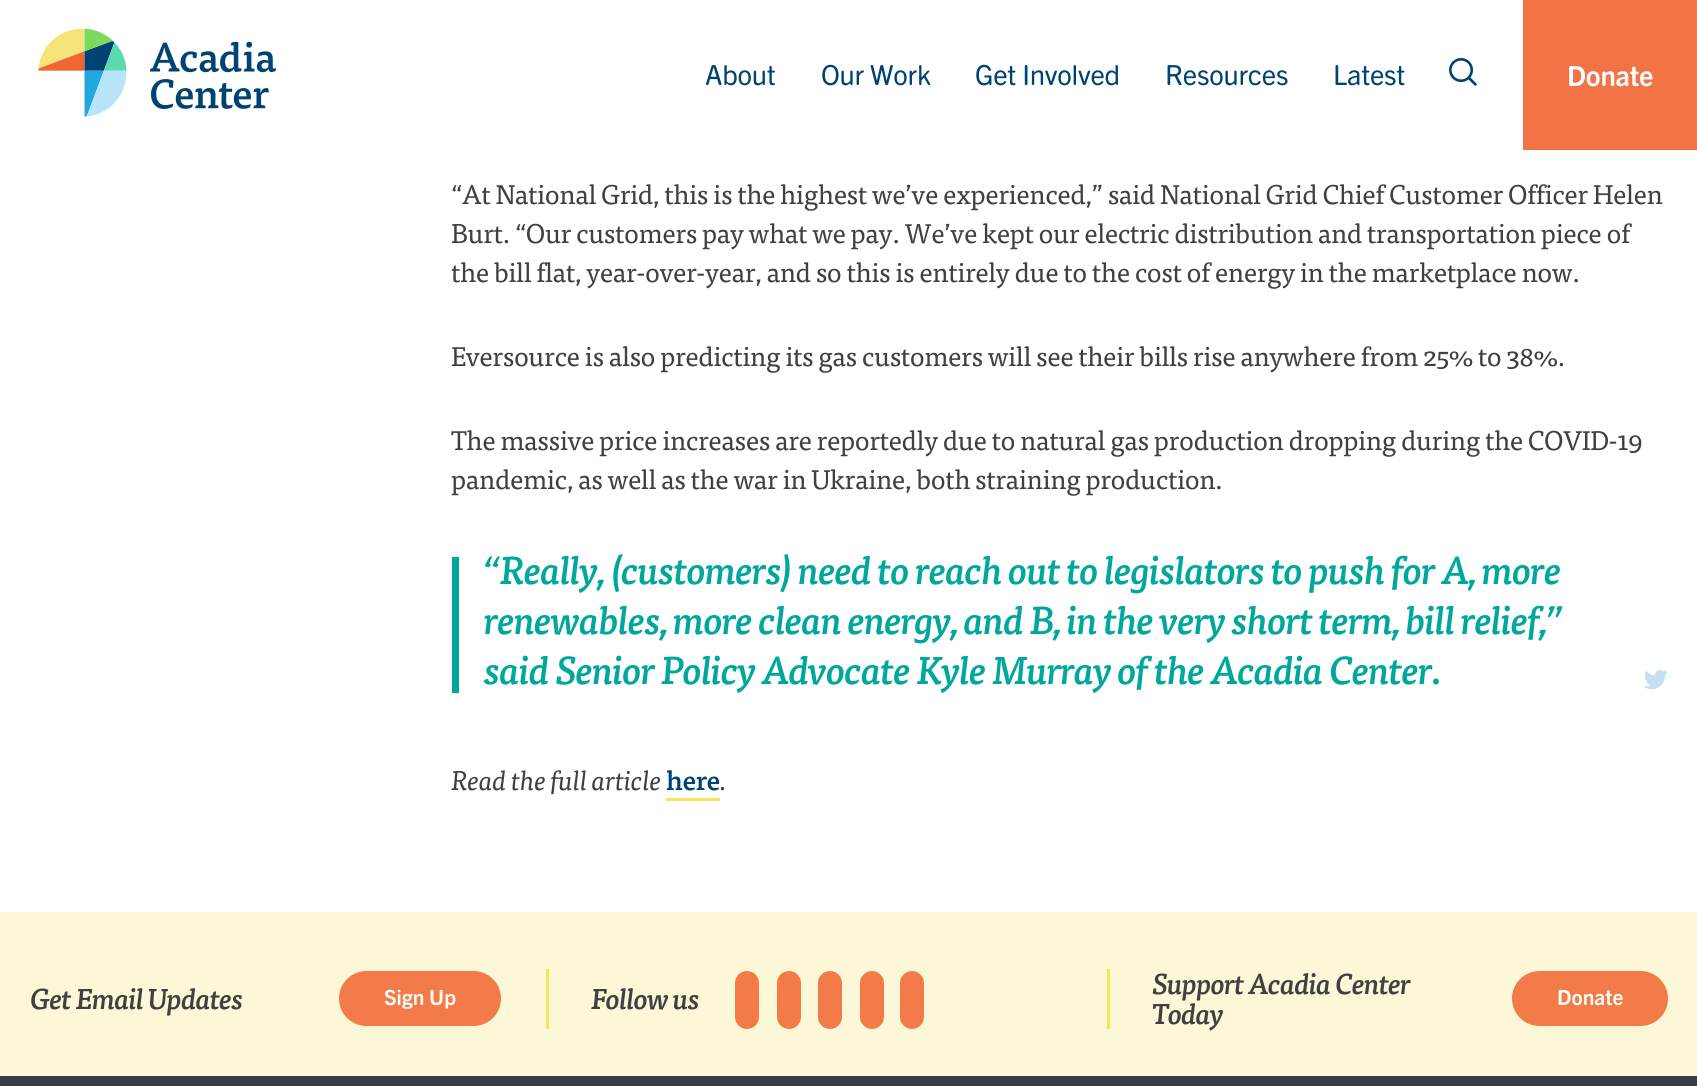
#include <cairo.h>
#include <math.h>
#include <stddef.h>


static void spaced_text(cairo_t *cr, double x, double y, const char *s, double letter, double word) {
    cairo_move_to(cr, x, y);
    while (*s) {
        char ch[5] = {0};
        int n = 0;
        do ch[n++] = *s++; while ((*s & 0xC0) == 0x80);
        cairo_show_text(cr, ch);
        cairo_rel_move_to(cr, letter + word * (*ch == ' '), 0);
    }
}

static void round_rect(cairo_t *cr, double x, double y, double w, double h, double r) {
    cairo_new_sub_path(cr);
    cairo_arc(cr, x + w - r, y + h - r, r, 0, M_PI / 2);
    cairo_arc(cr, x + r, y + h - r, r, M_PI / 2, M_PI);
    cairo_arc(cr, x + r, y + r, r, M_PI, 1.5 * M_PI);
    cairo_arc(cr, x + w - r, y + r, r, 1.5 * M_PI, 2 * M_PI);
    cairo_close_path(cr);
}

static void picture(cairo_t *cr, const char *path, double x, double y, double w, double h) {
    cairo_surface_t *image = cairo_image_surface_create_from_png(path);
    cairo_save(cr);
    cairo_set_source_surface(cr, image, x, y);
    cairo_rectangle(cr, x, y, w, h);
    cairo_fill(cr);
    cairo_restore(cr);
    cairo_surface_destroy(image);
}

int main(void) {
    cairo_surface_t *surface = cairo_image_surface_create(CAIRO_FORMAT_RGB24, 1697, 1086);
    cairo_t *cr = cairo_create(surface);
    cairo_font_options_t *options = cairo_font_options_create();
    cairo_font_options_set_hint_metrics(options, CAIRO_HINT_METRICS_OFF);
    cairo_font_options_set_hint_style(options, CAIRO_HINT_STYLE_NONE);
    cairo_set_font_options(cr, options);
    cairo_set_miter_limit(cr, 4);
    cairo_set_source_rgb(cr, 1, 1, 1);
    cairo_paint(cr);
    picture(cr, "img1.png", 38, 29, 238, 88);
    cairo_select_font_face(cr, "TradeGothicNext", CAIRO_FONT_SLANT_NORMAL, CAIRO_FONT_WEIGHT_NORMAL);
    cairo_set_font_size(cr, 27.75);
    cairo_set_source_rgb(cr, 0, 0.259, 0.443);
    spaced_text(cr, 705, 85, "About", -0.25, 0);
    spaced_text(cr, 821, 85, "Our Work", -0.25, 0);
    spaced_text(cr, 975, 85, "Get Involved", -0.25, 0);
    spaced_text(cr, 1165, 85, "Resources", -0.25, 0);
    spaced_text(cr, 1333, 85, "Latest", -0.25, 0);
    picture(cr, "img2.png", 1449, 58, 28, 28);
    cairo_set_source_rgb(cr, 0.949, 0.455, 0.275);
    cairo_rectangle(cr, 1523, 0, 174, 150);
    cairo_fill(cr);
    cairo_select_font_face(cr, "TradeGothicNext", CAIRO_FONT_SLANT_NORMAL, CAIRO_FONT_WEIGHT_BOLD);
    cairo_set_source_rgb(cr, 1, 1, 1);
    spaced_text(cr, 1567, 86, "Donate", -0.25, 0);
    cairo_select_font_face(cr, "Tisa", CAIRO_FONT_SLANT_NORMAL, CAIRO_FONT_WEIGHT_NORMAL);
    cairo_set_font_size(cr, 27);
    cairo_set_source_rgb(cr, 0.251, 0.251, 0.251);
    spaced_text(cr, 451, 204, "“At National Grid, this is the highest we’ve experienced,” said National Grid Chief Customer Officer Helen", -0.45, 0);
    spaced_text(cr, 451, 243, "Burt. “Our customers pay what we pay. We’ve kept our electric distribution and transportation piece of", -0.45, 0);
    spaced_text(cr, 451, 282, "the bill flat, year-over-year, and so this is entirely due to the cost of energy in the marketplace now.", -0.45, 0);
    spaced_text(cr, 451, 366, "Eversource is also predicting its gas customers will see their bills rise anywhere from 25% to 38%.", -0.45, 0);
    spaced_text(cr, 451, 450, "The massive price increases are reportedly due to natural gas production dropping during the COVID-19", -0.45, 0);
    spaced_text(cr, 451, 489, "pandemic, as well as the war in Ukraine, both straining production.", -0.45, 0);
    cairo_set_source_rgb(cr, 0, 0.655, 0.616);
    cairo_rectangle(cr, 452, 557, 7, 136);
    cairo_fill(cr);
    cairo_select_font_face(cr, "Tisa Medium", CAIRO_FONT_SLANT_ITALIC, CAIRO_FONT_WEIGHT_NORMAL);
    cairo_set_font_size(cr, 38.55);
    spaced_text(cr, 484, 584, "“Really, (customers) need to reach out to legislators to push for A, more", -1.05, 0);
    spaced_text(cr, 484, 634, "renewables, more clean energy, and B, in the very short term, bill relief,”", -1.05, 0);
    spaced_text(cr, 484, 684, "said Senior Policy Advocate Kyle Murray of the Acadia Center.", -1.05, 0);
    picture(cr, "img3.png", 1644, 670, 24, 20);
    cairo_select_font_face(cr, "Tisa", CAIRO_FONT_SLANT_ITALIC, CAIRO_FONT_WEIGHT_NORMAL);
    cairo_set_font_size(cr, 27);
    cairo_set_source_rgb(cr, 0.251, 0.251, 0.251);
    spaced_text(cr, 451, 790, "Read the full article", -0.45, 0);
    cairo_select_font_face(cr, "Tisa Medium", CAIRO_FONT_SLANT_NORMAL, CAIRO_FONT_WEIGHT_NORMAL);
    cairo_set_source_rgb(cr, 0, 0.259, 0.443);
    spaced_text(cr, 666, 790, "here", -0.45, 0);
    cairo_select_font_face(cr, "Tisa", CAIRO_FONT_SLANT_ITALIC, CAIRO_FONT_WEIGHT_NORMAL);
    cairo_set_source_rgb(cr, 0.251, 0.251, 0.251);
    spaced_text(cr, 720, 790, ".", -0.45, 0);
    cairo_set_source_rgb(cr, 0.976, 0.89, 0.341);
    cairo_rectangle(cr, 666, 798, 54, 3);
    cairo_fill(cr);
    cairo_set_source_rgb(cr, 0.988, 0.965, 0.839);
    cairo_rectangle(cr, 0, 912, 1697, 164);
    cairo_fill(cr);
    cairo_select_font_face(cr, "Tisa Medium", CAIRO_FONT_SLANT_ITALIC, CAIRO_FONT_WEIGHT_NORMAL);
    cairo_set_font_size(cr, 28.5);
    cairo_set_source_rgb(cr, 0.251, 0.251, 0.251);
    spaced_text(cr, 30, 1009, "Get Email Updates", -0.9, 0);
    cairo_set_source_rgb(cr, 0.953, 0.482, 0.29);
    round_rect(cr, 339, 971, 162, 55, 27.5);
    cairo_fill(cr);
    cairo_select_font_face(cr, "TradeGothicNext", CAIRO_FONT_SLANT_NORMAL, CAIRO_FONT_WEIGHT_BOLD);
    cairo_set_font_size(cr, 21);
    cairo_set_source_rgb(cr, 1, 0.996, 0.976);
    cairo_move_to(cr, 384, 1005);
    cairo_show_text(cr, "Sign Up");
    cairo_set_source_rgb(cr, 0.976, 0.89, 0.341);
    cairo_rectangle(cr, 546, 969, 3, 60);
    cairo_fill(cr);
    cairo_select_font_face(cr, "Tisa Medium", CAIRO_FONT_SLANT_ITALIC, CAIRO_FONT_WEIGHT_NORMAL);
    cairo_set_font_size(cr, 28.5);
    cairo_set_source_rgb(cr, 0.251, 0.251, 0.251);
    spaced_text(cr, 591, 1009, "Follow us", -0.9, 0);
    cairo_set_source_rgb(cr, 0.953, 0.482, 0.29);
    round_rect(cr, 735, 971, 24, 58, 12);
    cairo_fill(cr);
    round_rect(cr, 777, 971, 24, 58, 12);
    cairo_fill(cr);
    round_rect(cr, 818, 971, 24, 58, 12);
    cairo_fill(cr);
    round_rect(cr, 860, 971, 24, 58, 12);
    cairo_fill(cr);
    round_rect(cr, 900, 971, 24, 58, 12);
    cairo_fill(cr);
    cairo_set_source_rgb(cr, 0.976, 0.89, 0.341);
    cairo_rectangle(cr, 1107, 969, 3, 60);
    cairo_fill(cr);
    cairo_set_source_rgb(cr, 0.251, 0.251, 0.251);
    spaced_text(cr, 1152, 994, "Support Acadia Center", -0.9, 0);
    spaced_text(cr, 1152, 1024, "Today", -0.9, 0);
    cairo_set_source_rgb(cr, 0.953, 0.482, 0.29);
    round_rect(cr, 1512, 971, 156, 55, 27.5);
    cairo_fill(cr);
    cairo_select_font_face(cr, "TradeGothicNext", CAIRO_FONT_SLANT_NORMAL, CAIRO_FONT_WEIGHT_BOLD);
    cairo_set_font_size(cr, 21);
    cairo_set_source_rgb(cr, 1, 0.996, 0.976);
    cairo_move_to(cr, 1557, 1005);
    cairo_show_text(cr, "Donate");
    cairo_set_source_rgb(cr, 0.216, 0.235, 0.282);
    cairo_rectangle(cr, 0, 1076, 1697, 10);
    cairo_fill(cr);
    cairo_surface_write_to_png(surface, "page.png");
    cairo_font_options_destroy(options);
    cairo_destroy(cr);
    cairo_surface_destroy(surface);
    return 0;
}
